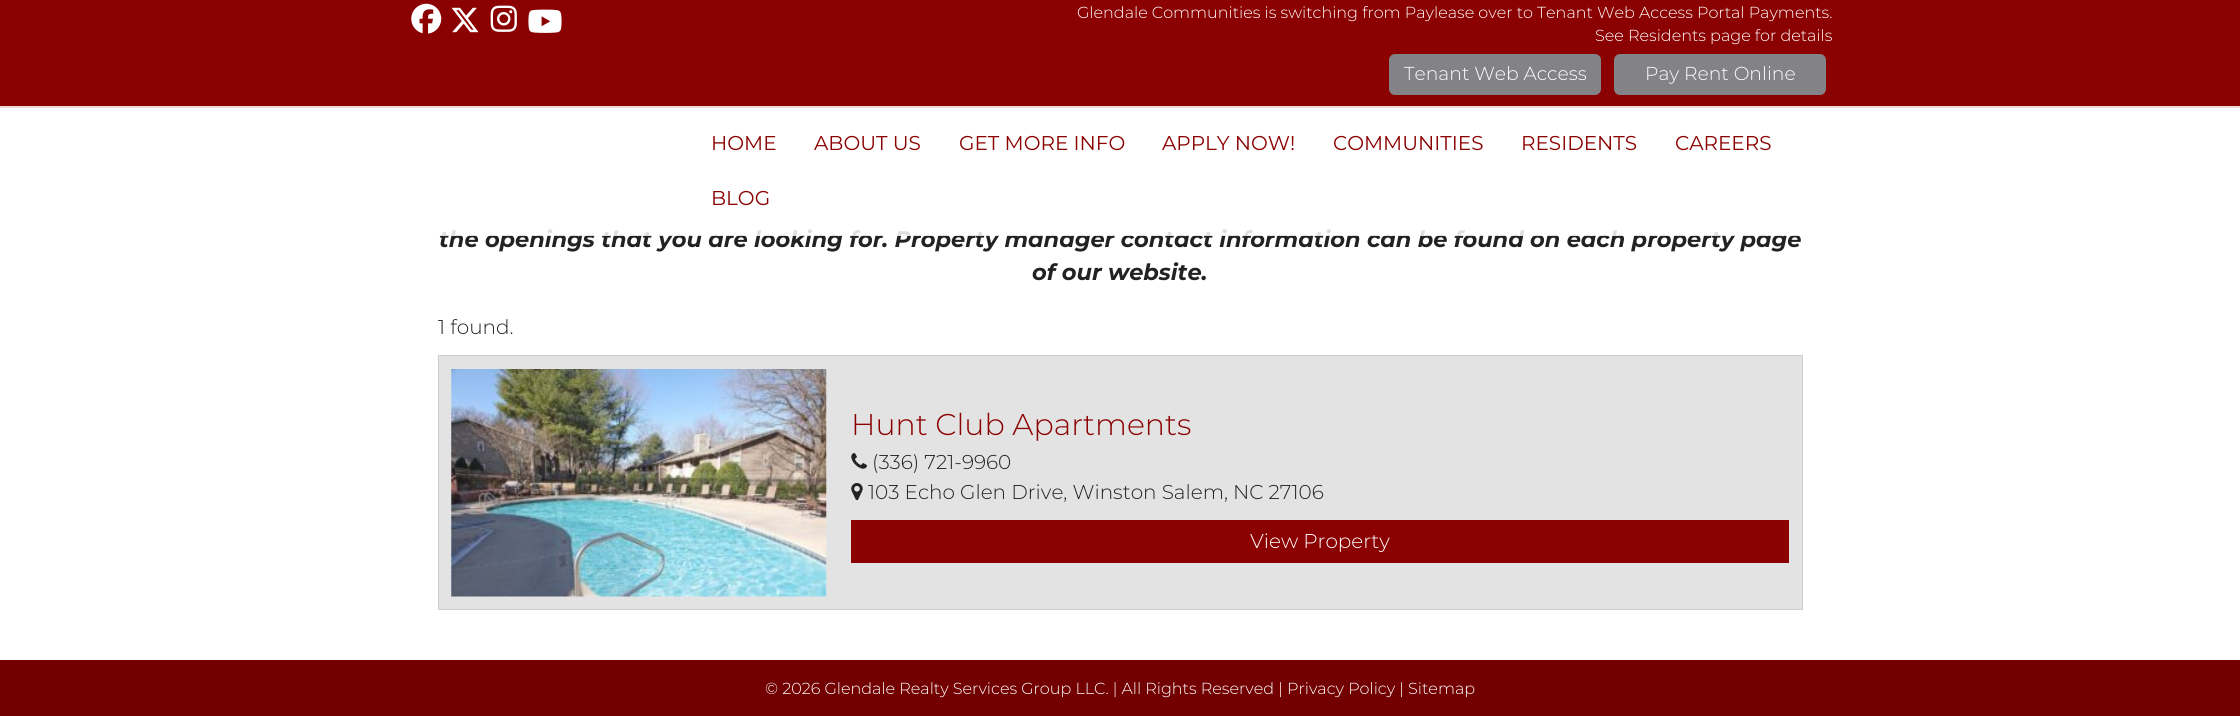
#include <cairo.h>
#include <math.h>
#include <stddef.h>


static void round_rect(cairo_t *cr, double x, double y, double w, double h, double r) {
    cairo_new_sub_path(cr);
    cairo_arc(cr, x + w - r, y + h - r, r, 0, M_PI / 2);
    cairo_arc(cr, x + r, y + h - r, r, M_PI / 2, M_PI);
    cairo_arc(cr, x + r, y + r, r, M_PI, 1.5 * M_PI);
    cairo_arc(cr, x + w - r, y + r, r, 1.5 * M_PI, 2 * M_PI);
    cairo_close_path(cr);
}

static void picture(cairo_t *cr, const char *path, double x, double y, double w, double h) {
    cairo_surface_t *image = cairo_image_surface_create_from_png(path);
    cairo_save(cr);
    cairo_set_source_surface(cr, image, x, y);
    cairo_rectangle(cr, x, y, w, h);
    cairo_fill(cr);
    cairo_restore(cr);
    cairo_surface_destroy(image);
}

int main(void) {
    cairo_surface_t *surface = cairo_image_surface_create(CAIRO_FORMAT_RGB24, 2240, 716);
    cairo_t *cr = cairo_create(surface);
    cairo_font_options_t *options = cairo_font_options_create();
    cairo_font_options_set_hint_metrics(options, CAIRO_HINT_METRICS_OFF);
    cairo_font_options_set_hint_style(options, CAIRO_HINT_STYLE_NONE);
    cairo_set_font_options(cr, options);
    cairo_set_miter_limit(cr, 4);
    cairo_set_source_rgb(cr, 1, 1, 1);
    cairo_paint(cr);
    cairo_set_source_rgb(cr, 0.545, 0, 0);
    cairo_rectangle(cr, 0, 0, 2240, 108);
    cairo_fill(cr);
    picture(cr, "img1.png", 411, 3, 31, 31);
    picture(cr, "img2.png", 451, 7, 28, 26);
    picture(cr, "img3.png", 490, 5, 27, 27);
    picture(cr, "img4.png", 528, 9, 34, 24);
    cairo_select_font_face(cr, "Montserrat Light", CAIRO_FONT_SLANT_NORMAL, CAIRO_FONT_WEIGHT_NORMAL);
    cairo_set_font_size(cr, 16);
    cairo_set_source_rgb(cr, 1, 1, 1);
    cairo_move_to(cr, 1077, 18);
    cairo_show_text(cr, "Glendale Communities is switching from Paylease over to Tenant Web Access Portal Payments.");
    cairo_move_to(cr, 1595, 41);
    cairo_show_text(cr, "See Residents page for details");
    cairo_set_source_rgb(cr, 0.514, 0.51, 0.529);
    round_rect(cr, 1389, 54, 212, 41, 6);
    cairo_fill(cr);
    cairo_set_font_size(cr, 18.75);
    cairo_set_source_rgb(cr, 1, 1, 1);
    cairo_move_to(cr, 1404, 80);
    cairo_show_text(cr, "Tenant Web Access");
    cairo_set_source_rgb(cr, 0.514, 0.51, 0.529);
    round_rect(cr, 1614, 54, 212, 41, 6);
    cairo_fill(cr);
    cairo_set_source_rgb(cr, 1, 1, 1);
    cairo_move_to(cr, 1645, 80);
    cairo_show_text(cr, "Pay Rent Online");
    cairo_select_font_face(cr, "Montserrat", CAIRO_FONT_SLANT_ITALIC, CAIRO_FONT_WEIGHT_BOLD);
    cairo_set_font_size(cr, 22.5);
    cairo_set_source_rgb(cr, 0.133, 0.133, 0.133);
    cairo_move_to(cr, 439, 247);
    cairo_show_text(cr, "the openings that you are looking for. Property manager contact information can be found on each property page");
    cairo_set_source_rgba(cr, 1, 1, 1, 0.85);
    cairo_rectangle(cr, 0, 106, 2240, 130);
    cairo_fill(cr);
    cairo_select_font_face(cr, "Montserrat", CAIRO_FONT_SLANT_NORMAL, CAIRO_FONT_WEIGHT_NORMAL);
    cairo_set_font_size(cr, 20);
    cairo_set_source_rgb(cr, 0.545, 0, 0);
    cairo_move_to(cr, 711, 150);
    cairo_show_text(cr, "HOME");
    cairo_move_to(cr, 814, 150);
    cairo_show_text(cr, "ABOUT US");
    cairo_move_to(cr, 959, 150);
    cairo_show_text(cr, "GET MORE INFO");
    cairo_move_to(cr, 1162, 150);
    cairo_show_text(cr, "APPLY NOW!");
    cairo_move_to(cr, 1333, 150);
    cairo_show_text(cr, "COMMUNITIES");
    cairo_move_to(cr, 1521, 150);
    cairo_show_text(cr, "RESIDENTS");
    cairo_move_to(cr, 1675, 150);
    cairo_show_text(cr, "CAREERS");
    cairo_move_to(cr, 711, 205);
    cairo_show_text(cr, "BLOG");
    cairo_select_font_face(cr, "Montserrat", CAIRO_FONT_SLANT_ITALIC, CAIRO_FONT_WEIGHT_BOLD);
    cairo_set_font_size(cr, 22.5);
    cairo_set_source_rgb(cr, 0.133, 0.133, 0.133);
    cairo_move_to(cr, 1032, 280);
    cairo_show_text(cr, "of our website.");
    cairo_select_font_face(cr, "Montserrat Light", CAIRO_FONT_SLANT_NORMAL, CAIRO_FONT_WEIGHT_NORMAL);
    cairo_set_font_size(cr, 20);
    cairo_move_to(cr, 438, 334);
    cairo_show_text(cr, "1 found.");
    cairo_set_source_rgb(cr, 0.89, 0.89, 0.89);
    cairo_rectangle(cr, 438.5, 355.5, 1364, 254);
    cairo_fill_preserve(cr);
    cairo_set_source_rgb(cr, 0.804, 0.804, 0.804);
    cairo_set_line_width(cr, 1);
    cairo_stroke(cr);
    picture(cr, "img5.png", 451, 369, 376, 228);
    cairo_set_font_size(cr, 30);
    cairo_set_source_rgb(cr, 0.545, 0, 0);
    cairo_move_to(cr, 851, 435);
    cairo_show_text(cr, "Hunt Club Apartments");
    picture(cr, "img6.png", 851, 453, 16, 16);
    cairo_set_font_size(cr, 20);
    cairo_set_source_rgb(cr, 0.133, 0.133, 0.133);
    cairo_move_to(cr, 872, 469);
    cairo_show_text(cr, "(336) 721-9960");
    picture(cr, "img7.png", 851, 483, 12, 18);
    cairo_move_to(cr, 868, 499);
    cairo_show_text(cr, "103 Echo Glen Drive, Winston Salem, NC 27106");
    cairo_set_source_rgb(cr, 0.545, 0, 0);
    cairo_rectangle(cr, 851, 520, 938, 43);
    cairo_fill(cr);
    cairo_set_source_rgb(cr, 1, 1, 1);
    cairo_move_to(cr, 1250, 548);
    cairo_show_text(cr, "View Property");
    cairo_set_source_rgb(cr, 0.447, 0, 0);
    cairo_rectangle(cr, 0, 660, 2240, 56);
    cairo_fill(cr);
    cairo_set_font_size(cr, 16);
    cairo_set_source_rgb(cr, 1, 1, 1);
    cairo_move_to(cr, 765, 694);
    cairo_show_text(cr, "© 2026 Glendale Realty Services Group LLC. | All Rights Reserved | Privacy Policy | Sitemap");
    cairo_surface_write_to_png(surface, "page.png");
    cairo_font_options_destroy(options);
    cairo_destroy(cr);
    cairo_surface_destroy(surface);
    return 0;
}
